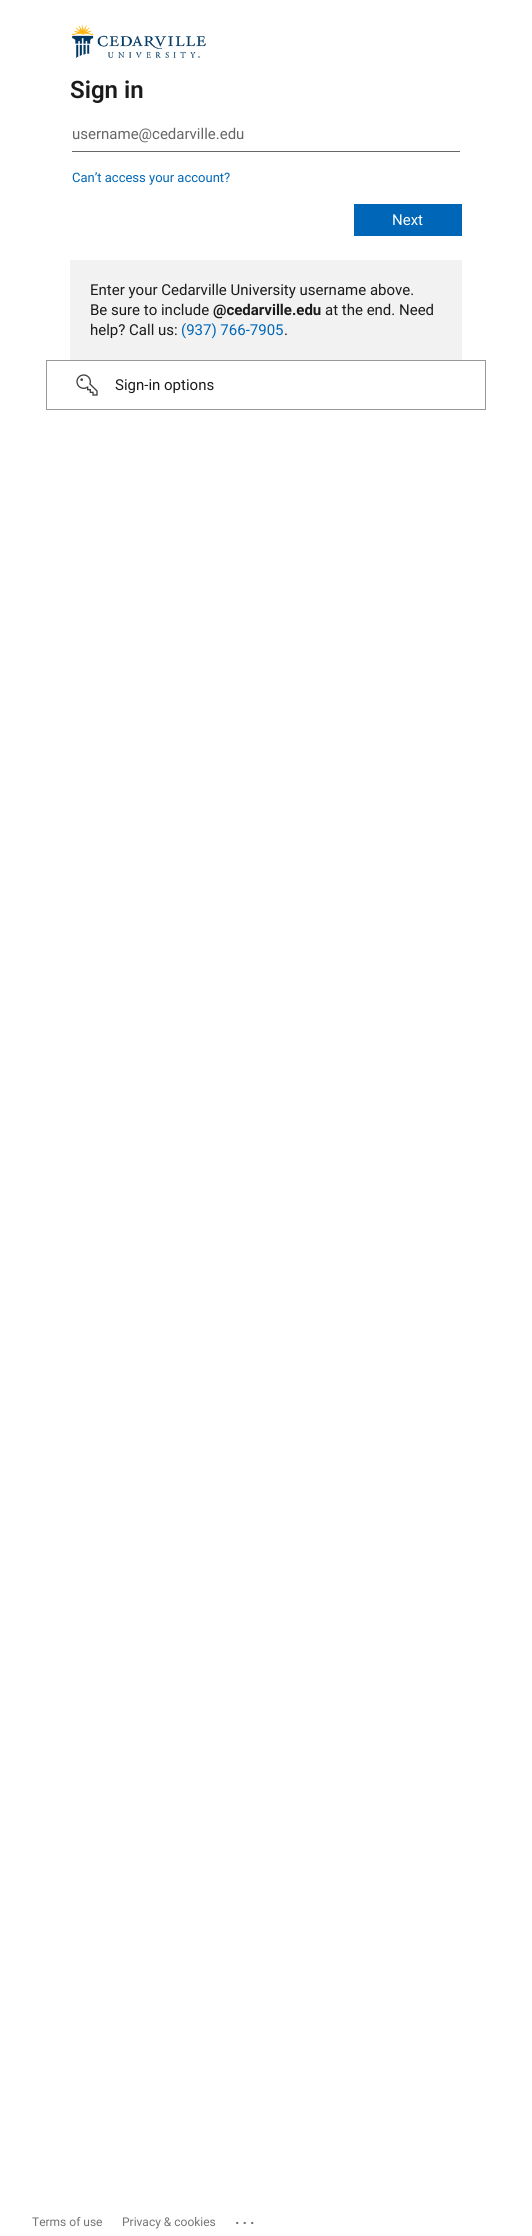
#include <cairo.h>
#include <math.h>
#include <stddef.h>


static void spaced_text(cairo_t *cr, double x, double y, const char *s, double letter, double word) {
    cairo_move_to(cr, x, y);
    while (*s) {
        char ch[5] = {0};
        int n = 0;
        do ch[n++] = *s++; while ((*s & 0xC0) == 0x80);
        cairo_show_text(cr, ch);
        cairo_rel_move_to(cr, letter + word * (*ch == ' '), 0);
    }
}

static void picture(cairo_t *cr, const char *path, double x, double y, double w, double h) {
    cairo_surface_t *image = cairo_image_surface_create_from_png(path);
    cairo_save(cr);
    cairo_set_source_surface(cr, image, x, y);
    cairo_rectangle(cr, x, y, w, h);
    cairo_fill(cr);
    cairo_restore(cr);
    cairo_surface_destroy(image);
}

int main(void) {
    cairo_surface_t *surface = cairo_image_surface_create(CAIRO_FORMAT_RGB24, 532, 2236);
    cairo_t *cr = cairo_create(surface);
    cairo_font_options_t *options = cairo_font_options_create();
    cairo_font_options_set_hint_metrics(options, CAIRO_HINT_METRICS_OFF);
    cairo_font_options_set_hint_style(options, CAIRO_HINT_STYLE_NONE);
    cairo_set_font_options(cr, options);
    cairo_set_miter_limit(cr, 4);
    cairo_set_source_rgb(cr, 1, 1, 1);
    cairo_paint(cr);
    picture(cr, "img1.png", 72, 24, 135, 34);
    cairo_select_font_face(cr, "Roboto SemiBold", CAIRO_FONT_SLANT_NORMAL, CAIRO_FONT_WEIGHT_NORMAL);
    cairo_set_font_size(cr, 24);
    cairo_set_source_rgb(cr, 0.106, 0.106, 0.106);
    cairo_move_to(cr, 70, 98);
    cairo_show_text(cr, "Sign in");
    cairo_set_source_rgb(cr, 0.4, 0.4, 0.4);
    cairo_rectangle(cr, 72, 151, 388, 1);
    cairo_fill(cr);
    cairo_select_font_face(cr, "Roboto", CAIRO_FONT_SLANT_NORMAL, CAIRO_FONT_WEIGHT_NORMAL);
    cairo_set_font_size(cr, 15);
    cairo_move_to(cr, 72, 139);
    cairo_show_text(cr, "username@cedarville.edu");
    cairo_set_font_size(cr, 13);
    cairo_set_source_rgb(cr, 0, 0.404, 0.722);
    cairo_move_to(cr, 72, 182);
    cairo_show_text(cr, "Can’t access your account?");
    cairo_rectangle(cr, 354, 204, 108, 32);
    cairo_fill(cr);
    cairo_set_font_size(cr, 15);
    cairo_set_source_rgb(cr, 1, 1, 1);
    cairo_move_to(cr, 392, 225);
    cairo_show_text(cr, "Next");
    cairo_set_source_rgb(cr, 0.949, 0.949, 0.949);
    cairo_rectangle(cr, 70, 260, 392, 100);
    cairo_fill(cr);
    cairo_set_source_rgb(cr, 0.106, 0.106, 0.106);
    cairo_move_to(cr, 90, 295);
    cairo_show_text(cr, "Enter your Cedarville University username above.");
    cairo_move_to(cr, 90, 315);
    cairo_show_text(cr, "Be sure to include");
    cairo_select_font_face(cr, "Roboto", CAIRO_FONT_SLANT_NORMAL, CAIRO_FONT_WEIGHT_BOLD);
    cairo_move_to(cr, 213, 315);
    cairo_show_text(cr, "@cedarville.edu");
    cairo_select_font_face(cr, "Roboto", CAIRO_FONT_SLANT_NORMAL, CAIRO_FONT_WEIGHT_NORMAL);
    cairo_move_to(cr, 325, 315);
    cairo_show_text(cr, "at the end. Need");
    cairo_move_to(cr, 90, 335);
    cairo_show_text(cr, "help? Call us:");
    cairo_set_source_rgb(cr, 0, 0.404, 0.722);
    cairo_move_to(cr, 181, 335);
    cairo_show_text(cr, "(937) 766-7905");
    cairo_set_source_rgb(cr, 0.106, 0.106, 0.106);
    cairo_move_to(cr, 284, 335);
    cairo_show_text(cr, ".");
    cairo_rectangle(cr, 46.5, 360.5, 439, 49);
    cairo_set_source_rgb(cr, 0.6, 0.6, 0.6);
    cairo_set_line_width(cr, 1);
    cairo_stroke(cr);
    picture(cr, "img2.png", 76, 374, 22, 22);
    cairo_set_source_rgb(cr, 0.106, 0.106, 0.106);
    cairo_move_to(cr, 115, 390);
    cairo_show_text(cr, "Sign-in options");
    cairo_set_font_size(cr, 12);
    cairo_set_source_rgb(cr, 0.455, 0.455, 0.455);
    cairo_move_to(cr, 32, 2226);
    cairo_show_text(cr, "Terms of use");
    cairo_move_to(cr, 122, 2226);
    cairo_show_text(cr, "Privacy & cookies");
    cairo_select_font_face(cr, "Roboto SemiBold", CAIRO_FONT_SLANT_NORMAL, CAIRO_FONT_WEIGHT_NORMAL);
    cairo_set_font_size(cr, 16);
    spaced_text(cr, 235, 2224, "...", 3, 0);
    cairo_surface_write_to_png(surface, "page.png");
    cairo_font_options_destroy(options);
    cairo_destroy(cr);
    cairo_surface_destroy(surface);
    return 0;
}
